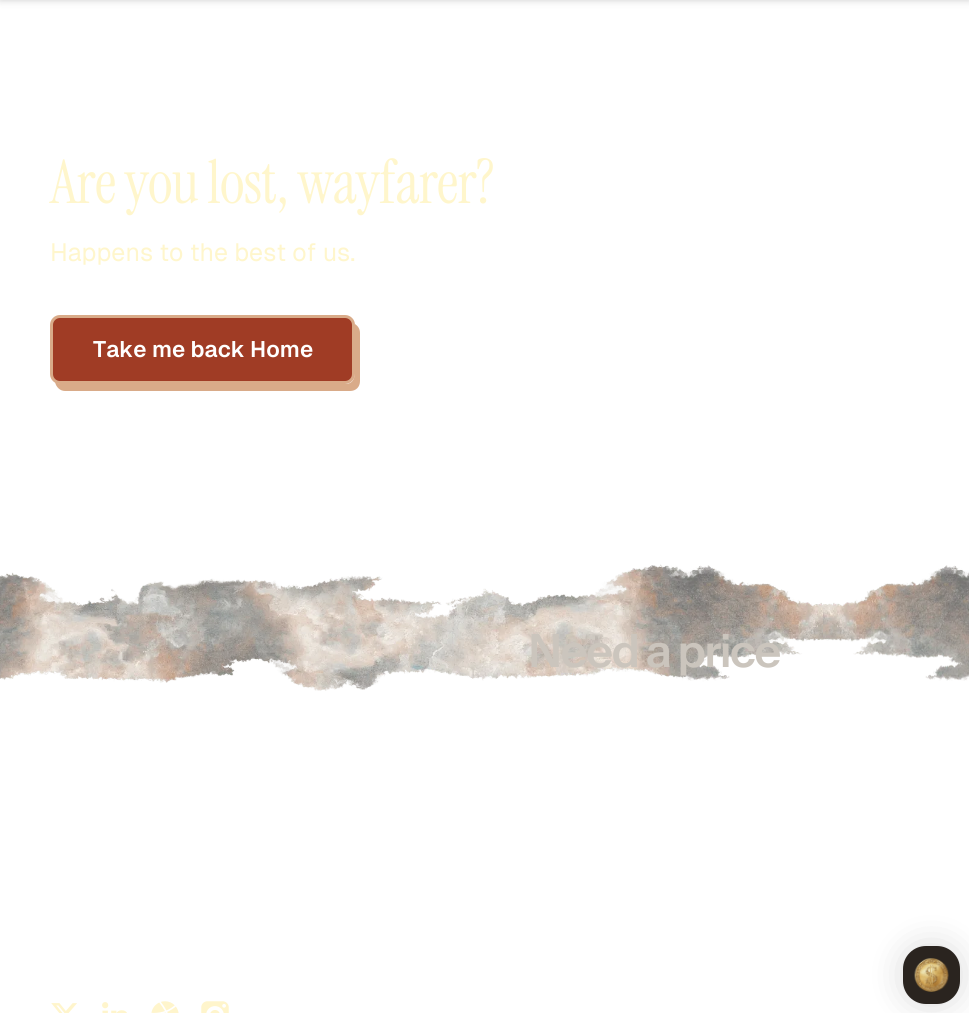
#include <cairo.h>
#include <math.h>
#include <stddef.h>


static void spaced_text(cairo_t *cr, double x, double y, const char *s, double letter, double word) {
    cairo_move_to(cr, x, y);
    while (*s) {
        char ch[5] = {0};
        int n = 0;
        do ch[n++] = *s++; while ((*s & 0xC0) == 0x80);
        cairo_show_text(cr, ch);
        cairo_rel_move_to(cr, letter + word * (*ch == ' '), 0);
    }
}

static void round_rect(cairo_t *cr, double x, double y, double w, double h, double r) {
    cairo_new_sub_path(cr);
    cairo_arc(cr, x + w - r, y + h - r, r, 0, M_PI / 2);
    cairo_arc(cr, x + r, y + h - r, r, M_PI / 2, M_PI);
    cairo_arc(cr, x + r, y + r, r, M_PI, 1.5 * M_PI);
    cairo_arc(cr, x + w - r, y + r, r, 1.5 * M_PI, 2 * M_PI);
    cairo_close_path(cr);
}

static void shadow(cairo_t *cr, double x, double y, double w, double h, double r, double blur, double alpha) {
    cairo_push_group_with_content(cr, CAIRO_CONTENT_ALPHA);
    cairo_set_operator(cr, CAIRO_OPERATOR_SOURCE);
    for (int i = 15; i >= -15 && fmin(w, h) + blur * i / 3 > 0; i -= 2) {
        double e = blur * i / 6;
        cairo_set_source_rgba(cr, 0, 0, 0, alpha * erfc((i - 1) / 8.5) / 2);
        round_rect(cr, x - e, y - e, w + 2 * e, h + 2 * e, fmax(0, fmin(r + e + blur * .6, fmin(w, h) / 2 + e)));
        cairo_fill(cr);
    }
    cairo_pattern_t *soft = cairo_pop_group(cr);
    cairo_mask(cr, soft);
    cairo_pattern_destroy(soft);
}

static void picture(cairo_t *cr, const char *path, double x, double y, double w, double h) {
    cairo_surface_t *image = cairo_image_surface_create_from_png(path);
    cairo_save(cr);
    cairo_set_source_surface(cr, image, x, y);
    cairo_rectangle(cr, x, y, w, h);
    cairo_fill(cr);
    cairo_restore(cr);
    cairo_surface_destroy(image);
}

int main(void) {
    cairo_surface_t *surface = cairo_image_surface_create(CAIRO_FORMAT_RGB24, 969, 1013);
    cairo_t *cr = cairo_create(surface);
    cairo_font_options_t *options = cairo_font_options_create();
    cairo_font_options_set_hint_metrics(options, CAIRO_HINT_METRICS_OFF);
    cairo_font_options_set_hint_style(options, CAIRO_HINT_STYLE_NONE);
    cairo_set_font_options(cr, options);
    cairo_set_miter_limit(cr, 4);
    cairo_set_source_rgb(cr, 1, 1, 1);
    cairo_paint(cr);
    cairo_set_source_rgb(cr, 0, 0, 0);
    shadow(cr, 0, -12, 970, 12, 0, 4, 0.2);
    cairo_select_font_face(cr, "Instrument Serif", CAIRO_FONT_SLANT_NORMAL, CAIRO_FONT_WEIGHT_NORMAL);
    cairo_set_font_size(cr, 60);
    cairo_set_source_rgb(cr, 1, 0.961, 0.8);
    spaced_text(cr, 50, 203, "Are you lost, wayfarer?", -0.8, 0);
    cairo_select_font_face(cr, "Geist", CAIRO_FONT_SLANT_NORMAL, CAIRO_FONT_WEIGHT_NORMAL);
    cairo_set_font_size(cr, 25);
    cairo_move_to(cr, 50, 261);
    cairo_show_text(cr, "Happens to the best of us.");
    cairo_set_source_rgb(cr, 0.851, 0.671, 0.537);
    cairo_new_path(cr);
    cairo_move_to(cr, 55, 382);
    cairo_curve_to(cr, 56, 387, 60, 391, 65, 391);
    cairo_line_to(cr, 350, 391);
    cairo_curve_to(cr, 356, 391, 360, 387, 360, 381);
    cairo_line_to(cr, 360, 333);
    cairo_curve_to(cr, 360, 329, 358, 326, 355, 324);
    cairo_line_to(cr, 355, 366);
    cairo_curve_to(cr, 355, 373, 356, 384, 345, 384);
    cairo_line_to(cr, 60, 384);
    cairo_close_path(cr);
    cairo_fill(cr);
    cairo_set_source_rgb(cr, 0.627, 0.235, 0.145);
    round_rect(cr, 51.5, 316.5, 302, 66, 8.5);
    cairo_fill_preserve(cr);
    cairo_set_source_rgb(cr, 0.851, 0.671, 0.537);
    cairo_set_line_width(cr, 3);
    cairo_stroke(cr);
    cairo_select_font_face(cr, "Geist SemiBold", CAIRO_FONT_SLANT_NORMAL, CAIRO_FONT_WEIGHT_NORMAL);
    cairo_set_font_size(cr, 22.5);
    cairo_set_source_rgb(cr, 1, 1, 1);
    cairo_move_to(cr, 93, 357);
    cairo_show_text(cr, "Take me back Home");
    picture(cr, "img1.png", 0, 564, 833, 127);
    picture(cr, "img2.png", 823, 565, 146, 116);
    picture(cr, "img3.png", 51, 1003, 26, 10);
    picture(cr, "img4.png", 102, 1002, 25, 11);
    picture(cr, "img5.png", 151, 1001, 28, 12);
    picture(cr, "img6.png", 201, 1001, 28, 12);
    cairo_select_font_face(cr, "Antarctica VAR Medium", CAIRO_FONT_SLANT_ITALIC, CAIRO_FONT_WEIGHT_NORMAL);
    cairo_set_font_size(cr, 45);
    cairo_set_source_rgb(cr, 0.796, 0.773, 0.741);
    spaced_text(cr, 528, 667, "Need a price", -1.75, 0);
    cairo_set_source_rgb(cr, 0, 0, 0);
    shadow(cr, 903, 946, 57, 58, 23, 17, 0.15);
    cairo_set_source_rgb(cr, 0.165, 0.141, 0.122);
    round_rect(cr, 903, 946, 57, 58, 23);
    cairo_fill(cr);
    picture(cr, "img7.png", 914, 958, 35, 34);
    cairo_surface_write_to_png(surface, "page.png");
    cairo_font_options_destroy(options);
    cairo_destroy(cr);
    cairo_surface_destroy(surface);
    return 0;
}
